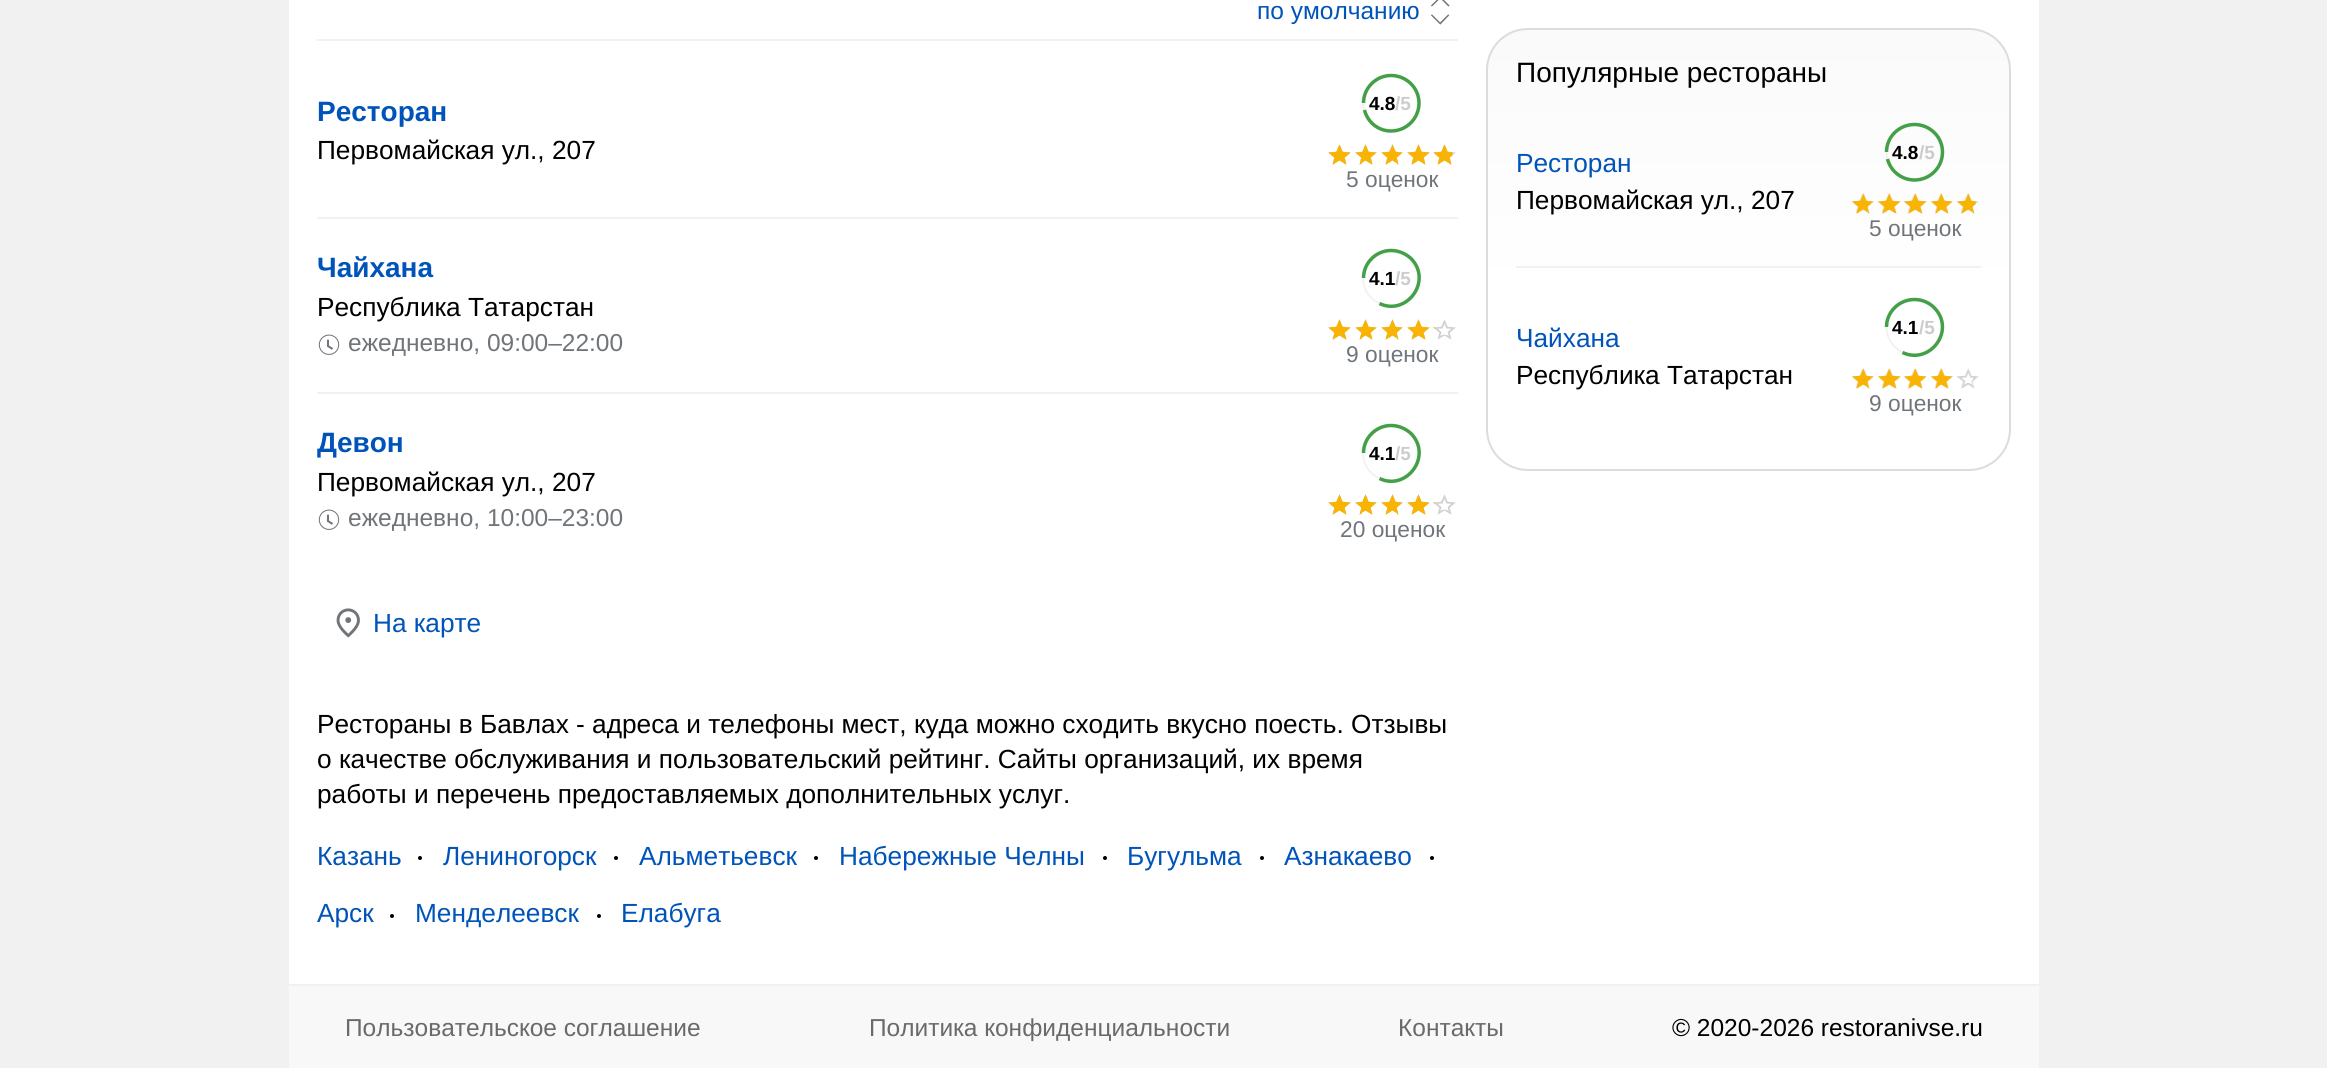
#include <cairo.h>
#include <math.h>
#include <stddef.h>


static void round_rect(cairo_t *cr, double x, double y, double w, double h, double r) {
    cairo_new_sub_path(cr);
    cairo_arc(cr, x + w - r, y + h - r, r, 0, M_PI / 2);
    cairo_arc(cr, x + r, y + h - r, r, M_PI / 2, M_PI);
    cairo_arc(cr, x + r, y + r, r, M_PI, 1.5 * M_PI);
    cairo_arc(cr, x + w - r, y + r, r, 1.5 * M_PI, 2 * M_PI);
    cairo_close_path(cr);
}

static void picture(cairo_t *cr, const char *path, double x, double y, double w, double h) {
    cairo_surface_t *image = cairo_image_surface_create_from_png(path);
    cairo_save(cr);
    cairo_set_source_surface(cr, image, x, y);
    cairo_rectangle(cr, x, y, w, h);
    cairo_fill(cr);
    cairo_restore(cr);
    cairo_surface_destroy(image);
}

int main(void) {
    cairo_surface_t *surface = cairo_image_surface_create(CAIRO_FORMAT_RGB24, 2327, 1068);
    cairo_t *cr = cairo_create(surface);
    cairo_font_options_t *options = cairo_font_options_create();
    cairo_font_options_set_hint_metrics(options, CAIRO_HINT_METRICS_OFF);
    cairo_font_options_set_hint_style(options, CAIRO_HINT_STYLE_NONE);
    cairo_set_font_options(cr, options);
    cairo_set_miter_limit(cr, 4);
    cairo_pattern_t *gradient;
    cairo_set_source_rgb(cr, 0.945, 0.945, 0.945);
    cairo_paint(cr);
    cairo_set_source_rgb(cr, 1, 1, 1);
    cairo_rectangle(cr, 289, 0, 1750, 984);
    cairo_fill(cr);
    cairo_set_source_rgb(cr, 0.945, 0.945, 0.945);
    cairo_rectangle(cr, 317, 39, 1141, 2);
    cairo_fill(cr);
    picture(cr, "img1.png", 1431, 0, 19, 25);
    cairo_select_font_face(cr, "Liberation Sans", CAIRO_FONT_SLANT_NORMAL, CAIRO_FONT_WEIGHT_NORMAL);
    cairo_set_font_size(cr, 24.5);
    cairo_set_source_rgb(cr, 0, 0.329, 0.725);
    cairo_move_to(cr, 1257, 19);
    cairo_show_text(cr, "по умолчанию");
    cairo_select_font_face(cr, "Liberation Sans", CAIRO_FONT_SLANT_NORMAL, CAIRO_FONT_WEIGHT_BOLD);
    cairo_set_font_size(cr, 28);
    cairo_move_to(cr, 317, 121);
    cairo_show_text(cr, "Ресторан");
    cairo_select_font_face(cr, "Liberation Sans", CAIRO_FONT_SLANT_NORMAL, CAIRO_FONT_WEIGHT_NORMAL);
    cairo_set_font_size(cr, 26.25);
    cairo_set_source_rgb(cr, 0, 0, 0);
    cairo_move_to(cr, 317, 159);
    cairo_show_text(cr, "Первомайская ул., 207");
    cairo_new_path(cr);
    cairo_arc(cr, 1391, 103, 28, 0, 2 * M_PI);
    cairo_set_source_rgb(cr, 0.945, 0.945, 0.945);
    cairo_set_line_width(cr, 1.8);
    cairo_stroke(cr);
    cairo_new_path(cr);
    cairo_move_to(cr, 1391, 75.5);
    cairo_curve_to(cr, 1406.5, 75.5, 1419, 88, 1419, 103);
    cairo_curve_to(cr, 1419, 118.5, 1406.5, 131, 1391, 131);
    cairo_curve_to(cr, 1378, 131, 1367.5, 122, 1364.5, 110);
    cairo_move_to(cr, 1363.5, 103);
    cairo_curve_to(cr, 1363.5, 88, 1376, 75.5, 1391, 75.5);
    cairo_set_source_rgb(cr, 0.263, 0.627, 0.278);
    cairo_set_line_width(cr, 3.5);
    cairo_stroke(cr);
    cairo_select_font_face(cr, "Liberation Sans", CAIRO_FONT_SLANT_NORMAL, CAIRO_FONT_WEIGHT_BOLD);
    cairo_set_font_size(cr, 19);
    cairo_set_source_rgb(cr, 0, 0, 0);
    cairo_move_to(cr, 1369, 110);
    cairo_show_text(cr, "4.8");
    cairo_set_source_rgb(cr, 0.8, 0.8, 0.8);
    cairo_move_to(cr, 1395, 110);
    cairo_show_text(cr, "/5");
    picture(cr, "img2.png", 1328, 144, 128, 21);
    picture(cr, "img3.png", 1328, 144, 125, 21);
    cairo_select_font_face(cr, "Liberation Sans", CAIRO_FONT_SLANT_NORMAL, CAIRO_FONT_WEIGHT_NORMAL);
    cairo_set_font_size(cr, 22.75);
    cairo_set_source_rgb(cr, 0.439, 0.459, 0.478);
    cairo_move_to(cr, 1346, 187);
    cairo_show_text(cr, "5 оценок");
    cairo_set_source_rgb(cr, 0.945, 0.945, 0.945);
    cairo_rectangle(cr, 317, 217, 1141, 2);
    cairo_fill(cr);
    cairo_select_font_face(cr, "Liberation Sans", CAIRO_FONT_SLANT_NORMAL, CAIRO_FONT_WEIGHT_BOLD);
    cairo_set_font_size(cr, 28);
    cairo_set_source_rgb(cr, 0, 0.329, 0.725);
    cairo_move_to(cr, 317, 277);
    cairo_show_text(cr, "Чайхана");
    cairo_select_font_face(cr, "Liberation Sans", CAIRO_FONT_SLANT_NORMAL, CAIRO_FONT_WEIGHT_NORMAL);
    cairo_set_font_size(cr, 26.25);
    cairo_set_source_rgb(cr, 0, 0, 0);
    cairo_move_to(cr, 317, 316);
    cairo_show_text(cr, "Республика Татарстан");
    picture(cr, "img4.png", 318, 334, 22, 21);
    cairo_set_font_size(cr, 24.5);
    cairo_set_source_rgb(cr, 0.439, 0.459, 0.478);
    cairo_move_to(cr, 348, 351);
    cairo_show_text(cr, "ежедневно, 09:00–22:00");
    cairo_new_path(cr);
    cairo_arc(cr, 1391, 278, 28, 0, 2 * M_PI);
    cairo_set_source_rgb(cr, 0.945, 0.945, 0.945);
    cairo_set_line_width(cr, 1.8);
    cairo_stroke(cr);
    cairo_new_path(cr);
    cairo_move_to(cr, 1391, 250.5);
    cairo_curve_to(cr, 1398.5, 250.5, 1405.5, 253.5, 1411, 258.5);
    cairo_curve_to(cr, 1433, 281, 1406.5, 316.5, 1379.5, 303.5);
    cairo_move_to(cr, 1363.5, 278);
    cairo_curve_to(cr, 1363.5, 263, 1376, 250.5, 1391, 250.5);
    cairo_set_source_rgb(cr, 0.263, 0.627, 0.278);
    cairo_set_line_width(cr, 3.5);
    cairo_stroke(cr);
    cairo_select_font_face(cr, "Liberation Sans", CAIRO_FONT_SLANT_NORMAL, CAIRO_FONT_WEIGHT_BOLD);
    cairo_set_font_size(cr, 19);
    cairo_set_source_rgb(cr, 0, 0, 0);
    cairo_move_to(cr, 1369, 285);
    cairo_show_text(cr, "4.1");
    cairo_set_source_rgb(cr, 0.8, 0.8, 0.8);
    cairo_move_to(cr, 1395, 285);
    cairo_show_text(cr, "/5");
    picture(cr, "img5.png", 1328, 319, 128, 21);
    picture(cr, "img6.png", 1328, 319, 107, 21);
    cairo_select_font_face(cr, "Liberation Sans", CAIRO_FONT_SLANT_NORMAL, CAIRO_FONT_WEIGHT_NORMAL);
    cairo_set_font_size(cr, 22.75);
    cairo_set_source_rgb(cr, 0.439, 0.459, 0.478);
    cairo_move_to(cr, 1346, 362);
    cairo_show_text(cr, "9 оценок");
    cairo_set_source_rgb(cr, 0.945, 0.945, 0.945);
    cairo_rectangle(cr, 317, 392, 1141, 2);
    cairo_fill(cr);
    cairo_select_font_face(cr, "Liberation Sans", CAIRO_FONT_SLANT_NORMAL, CAIRO_FONT_WEIGHT_BOLD);
    cairo_set_font_size(cr, 28);
    cairo_set_source_rgb(cr, 0, 0.329, 0.725);
    cairo_move_to(cr, 317, 452);
    cairo_show_text(cr, "Девон");
    cairo_select_font_face(cr, "Liberation Sans", CAIRO_FONT_SLANT_NORMAL, CAIRO_FONT_WEIGHT_NORMAL);
    cairo_set_font_size(cr, 26.25);
    cairo_set_source_rgb(cr, 0, 0, 0);
    cairo_move_to(cr, 317, 491);
    cairo_show_text(cr, "Первомайская ул., 207");
    picture(cr, "img4.png", 318, 509, 22, 21);
    cairo_set_font_size(cr, 24.5);
    cairo_set_source_rgb(cr, 0.439, 0.459, 0.478);
    cairo_move_to(cr, 348, 526);
    cairo_show_text(cr, "ежедневно, 10:00–23:00");
    cairo_new_path(cr);
    cairo_arc(cr, 1391, 453, 28, 0, 2 * M_PI);
    cairo_set_source_rgb(cr, 0.945, 0.945, 0.945);
    cairo_set_line_width(cr, 1.8);
    cairo_stroke(cr);
    cairo_new_path(cr);
    cairo_move_to(cr, 1391, 425.5);
    cairo_curve_to(cr, 1398.5, 425.5, 1405.5, 428.5, 1411, 433.5);
    cairo_curve_to(cr, 1433, 456, 1406.5, 491.5, 1379.5, 478.5);
    cairo_move_to(cr, 1363.5, 453);
    cairo_curve_to(cr, 1363.5, 438, 1376, 425.5, 1391, 425.5);
    cairo_set_source_rgb(cr, 0.263, 0.627, 0.278);
    cairo_set_line_width(cr, 3.5);
    cairo_stroke(cr);
    cairo_select_font_face(cr, "Liberation Sans", CAIRO_FONT_SLANT_NORMAL, CAIRO_FONT_WEIGHT_BOLD);
    cairo_set_font_size(cr, 19);
    cairo_set_source_rgb(cr, 0, 0, 0);
    cairo_move_to(cr, 1369, 460);
    cairo_show_text(cr, "4.1");
    cairo_set_source_rgb(cr, 0.8, 0.8, 0.8);
    cairo_move_to(cr, 1395, 460);
    cairo_show_text(cr, "/5");
    picture(cr, "img5.png", 1328, 494, 128, 21);
    picture(cr, "img6.png", 1328, 494, 107, 21);
    cairo_select_font_face(cr, "Liberation Sans", CAIRO_FONT_SLANT_NORMAL, CAIRO_FONT_WEIGHT_NORMAL);
    cairo_set_font_size(cr, 22.75);
    cairo_set_source_rgb(cr, 0.439, 0.459, 0.478);
    cairo_move_to(cr, 1340, 537);
    cairo_show_text(cr, "20 оценок");
    picture(cr, "img7.png", 336, 608, 24, 30);
    cairo_set_font_size(cr, 26.25);
    cairo_set_source_rgb(cr, 0, 0.329, 0.725);
    cairo_move_to(cr, 373, 632);
    cairo_show_text(cr, "На карте");
    cairo_set_source_rgb(cr, 0, 0, 0);
    cairo_move_to(cr, 317, 733);
    cairo_show_text(cr, "Рестораны в Бавлах - адреса и телефоны мест, куда можно сходить вкусно поесть. Отзывы");
    cairo_move_to(cr, 317, 768);
    cairo_show_text(cr, "о качестве обслуживания и пользовательский рейтинг. Сайты организаций, их время");
    cairo_move_to(cr, 317, 803);
    cairo_show_text(cr, "работы и перечень предоставляемых дополнительных услуг.");
    cairo_set_source_rgb(cr, 0, 0.329, 0.725);
    cairo_move_to(cr, 317, 865);
    cairo_show_text(cr, "Казань");
    cairo_set_source_rgb(cr, 0, 0, 0);
    cairo_new_path(cr);
    cairo_arc(cr, 420, 858, 2, 0, 2 * M_PI);
    cairo_fill(cr);
    cairo_set_source_rgb(cr, 0, 0.329, 0.725);
    cairo_move_to(cr, 443, 865);
    cairo_show_text(cr, "Лениногорск");
    cairo_set_source_rgb(cr, 0, 0, 0);
    cairo_new_path(cr);
    cairo_arc(cr, 616, 858, 2, 0, 2 * M_PI);
    cairo_fill(cr);
    cairo_set_source_rgb(cr, 0, 0.329, 0.725);
    cairo_move_to(cr, 639, 865);
    cairo_show_text(cr, "Альметьевск");
    cairo_set_source_rgb(cr, 0, 0, 0);
    cairo_new_path(cr);
    cairo_arc(cr, 816, 858, 2, 0, 2 * M_PI);
    cairo_fill(cr);
    cairo_set_source_rgb(cr, 0, 0.329, 0.725);
    cairo_move_to(cr, 839, 865);
    cairo_show_text(cr, "Набережные Челны");
    cairo_set_source_rgb(cr, 0, 0, 0);
    cairo_new_path(cr);
    cairo_arc(cr, 1105, 858, 2, 0, 2 * M_PI);
    cairo_fill(cr);
    cairo_set_source_rgb(cr, 0, 0.329, 0.725);
    cairo_move_to(cr, 1127, 865);
    cairo_show_text(cr, "Бугульма");
    cairo_set_source_rgb(cr, 0, 0, 0);
    cairo_new_path(cr);
    cairo_arc(cr, 1262, 858, 2, 0, 2 * M_PI);
    cairo_fill(cr);
    cairo_set_source_rgb(cr, 0, 0.329, 0.725);
    cairo_move_to(cr, 1284, 865);
    cairo_show_text(cr, "Азнакаево");
    cairo_set_source_rgb(cr, 0, 0, 0);
    cairo_new_path(cr);
    cairo_arc(cr, 1432, 858, 2, 0, 2 * M_PI);
    cairo_fill(cr);
    cairo_set_source_rgb(cr, 0, 0.329, 0.725);
    cairo_move_to(cr, 317, 922);
    cairo_show_text(cr, "Арск");
    cairo_set_source_rgb(cr, 0, 0, 0);
    cairo_new_path(cr);
    cairo_arc(cr, 392, 916, 2, 0, 2 * M_PI);
    cairo_fill(cr);
    cairo_set_source_rgb(cr, 0, 0.329, 0.725);
    cairo_move_to(cr, 415, 922);
    cairo_show_text(cr, "Менделеевск");
    cairo_set_source_rgb(cr, 0, 0, 0);
    cairo_new_path(cr);
    cairo_arc(cr, 599, 916, 2, 0, 2 * M_PI);
    cairo_fill(cr);
    cairo_set_source_rgb(cr, 0, 0.329, 0.725);
    cairo_move_to(cr, 621, 922);
    cairo_show_text(cr, "Елабуга");
    cairo_save(cr);
    round_rect(cr, 1486, 28, 525, 443, 42);
    cairo_clip(cr);
    gradient = cairo_pattern_create_linear(1748, 30, 1748, 469);
    cairo_pattern_add_color_stop_rgba(gradient, 0, 0.98, 0.98, 0.98, 1);
    cairo_pattern_add_color_stop_rgba(gradient, 0.6, 1, 1, 1, 1);
    cairo_set_source(cr, gradient);
    cairo_pattern_destroy(gradient);
    cairo_rectangle(cr, 1486, 30, 525, 439);
    cairo_fill(cr);
    cairo_restore(cr);
    round_rect(cr, 1487, 29, 523, 441, 41);
    cairo_set_source_rgb(cr, 0.855, 0.863, 0.878);
    cairo_set_line_width(cr, 2);
    cairo_stroke(cr);
    cairo_set_font_size(cr, 28);
    cairo_set_source_rgb(cr, 0, 0, 0);
    cairo_move_to(cr, 1516, 82);
    cairo_show_text(cr, "Популярные рестораны");
    cairo_set_font_size(cr, 26.25);
    cairo_set_source_rgb(cr, 0, 0.329, 0.725);
    cairo_move_to(cr, 1516, 172);
    cairo_show_text(cr, "Ресторан");
    cairo_set_source_rgb(cr, 0, 0, 0);
    cairo_move_to(cr, 1516, 209);
    cairo_show_text(cr, "Первомайская ул., 207");
    cairo_new_path(cr);
    cairo_arc(cr, 1914.5, 152, 28, 0, 2 * M_PI);
    cairo_set_source_rgb(cr, 0.945, 0.945, 0.945);
    cairo_set_line_width(cr, 1.8);
    cairo_stroke(cr);
    cairo_new_path(cr);
    cairo_move_to(cr, 1914.5, 124.5);
    cairo_curve_to(cr, 1930, 124.5, 1942.5, 137, 1942.5, 152);
    cairo_curve_to(cr, 1942.5, 167.5, 1930, 180, 1914.5, 180);
    cairo_curve_to(cr, 1901.5, 180, 1890.5, 171, 1887.5, 159);
    cairo_move_to(cr, 1886.5, 152);
    cairo_curve_to(cr, 1886.5, 137, 1899, 124.5, 1914.5, 124.5);
    cairo_set_source_rgb(cr, 0.263, 0.627, 0.278);
    cairo_set_line_width(cr, 3.5);
    cairo_stroke(cr);
    cairo_select_font_face(cr, "Liberation Sans", CAIRO_FONT_SLANT_NORMAL, CAIRO_FONT_WEIGHT_BOLD);
    cairo_set_font_size(cr, 19);
    cairo_set_source_rgb(cr, 0, 0, 0);
    cairo_move_to(cr, 1892, 159);
    cairo_show_text(cr, "4.8");
    cairo_set_source_rgb(cr, 0.8, 0.8, 0.8);
    cairo_move_to(cr, 1919, 159);
    cairo_show_text(cr, "/5");
    picture(cr, "img8.png", 1852, 193, 127, 21);
    picture(cr, "img9.png", 1851, 193, 125, 21);
    cairo_select_font_face(cr, "Liberation Sans", CAIRO_FONT_SLANT_NORMAL, CAIRO_FONT_WEIGHT_NORMAL);
    cairo_set_font_size(cr, 22.75);
    cairo_set_source_rgb(cr, 0.439, 0.459, 0.478);
    cairo_move_to(cr, 1869, 236);
    cairo_show_text(cr, "5 оценок");
    cairo_set_source_rgb(cr, 0.945, 0.945, 0.945);
    cairo_rectangle(cr, 1516, 266, 465, 2);
    cairo_fill(cr);
    cairo_set_font_size(cr, 26.25);
    cairo_set_source_rgb(cr, 0, 0.329, 0.725);
    cairo_move_to(cr, 1516, 347);
    cairo_show_text(cr, "Чайхана");
    cairo_set_source_rgb(cr, 0, 0, 0);
    cairo_move_to(cr, 1516, 384);
    cairo_show_text(cr, "Республика Татарстан");
    cairo_new_path(cr);
    cairo_arc(cr, 1914.5, 327, 28, 0, 2 * M_PI);
    cairo_set_source_rgb(cr, 0.945, 0.945, 0.945);
    cairo_set_line_width(cr, 1.8);
    cairo_stroke(cr);
    cairo_new_path(cr);
    cairo_move_to(cr, 1914.5, 299.5);
    cairo_curve_to(cr, 1922, 299.5, 1929, 302.5, 1934, 307.5);
    cairo_curve_to(cr, 1956.5, 330, 1930, 365.5, 1902.5, 352.5);
    cairo_move_to(cr, 1886.5, 327);
    cairo_curve_to(cr, 1886.5, 312, 1899, 299.5, 1914.5, 299.5);
    cairo_set_source_rgb(cr, 0.263, 0.627, 0.278);
    cairo_set_line_width(cr, 3.5);
    cairo_stroke(cr);
    cairo_select_font_face(cr, "Liberation Sans", CAIRO_FONT_SLANT_NORMAL, CAIRO_FONT_WEIGHT_BOLD);
    cairo_set_font_size(cr, 19);
    cairo_set_source_rgb(cr, 0, 0, 0);
    cairo_move_to(cr, 1892, 334);
    cairo_show_text(cr, "4.1");
    cairo_set_source_rgb(cr, 0.8, 0.8, 0.8);
    cairo_move_to(cr, 1919, 334);
    cairo_show_text(cr, "/5");
    picture(cr, "img10.png", 1852, 368, 127, 21);
    picture(cr, "img11.png", 1851, 368, 108, 21);
    cairo_select_font_face(cr, "Liberation Sans", CAIRO_FONT_SLANT_NORMAL, CAIRO_FONT_WEIGHT_NORMAL);
    cairo_set_font_size(cr, 22.75);
    cairo_set_source_rgb(cr, 0.439, 0.459, 0.478);
    cairo_move_to(cr, 1869, 411);
    cairo_show_text(cr, "9 оценок");
    cairo_set_source_rgb(cr, 0.969, 0.969, 0.969);
    cairo_rectangle(cr, 289, 986, 1750, 82);
    cairo_fill(cr);
    cairo_set_font_size(cr, 24.5);
    cairo_set_source_rgb(cr, 0.416, 0.416, 0.416);
    cairo_move_to(cr, 345, 1036);
    cairo_show_text(cr, "Пользовательское соглашение");
    cairo_move_to(cr, 869, 1036);
    cairo_show_text(cr, "Политика конфиденциальности");
    cairo_move_to(cr, 1398, 1036);
    cairo_show_text(cr, "Контакты");
    cairo_set_source_rgb(cr, 0, 0, 0);
    cairo_move_to(cr, 1672, 1036);
    cairo_show_text(cr, "© 2020-2026 restoranivse.ru");
    cairo_surface_write_to_png(surface, "page.png");
    cairo_font_options_destroy(options);
    cairo_destroy(cr);
    cairo_surface_destroy(surface);
    return 0;
}
